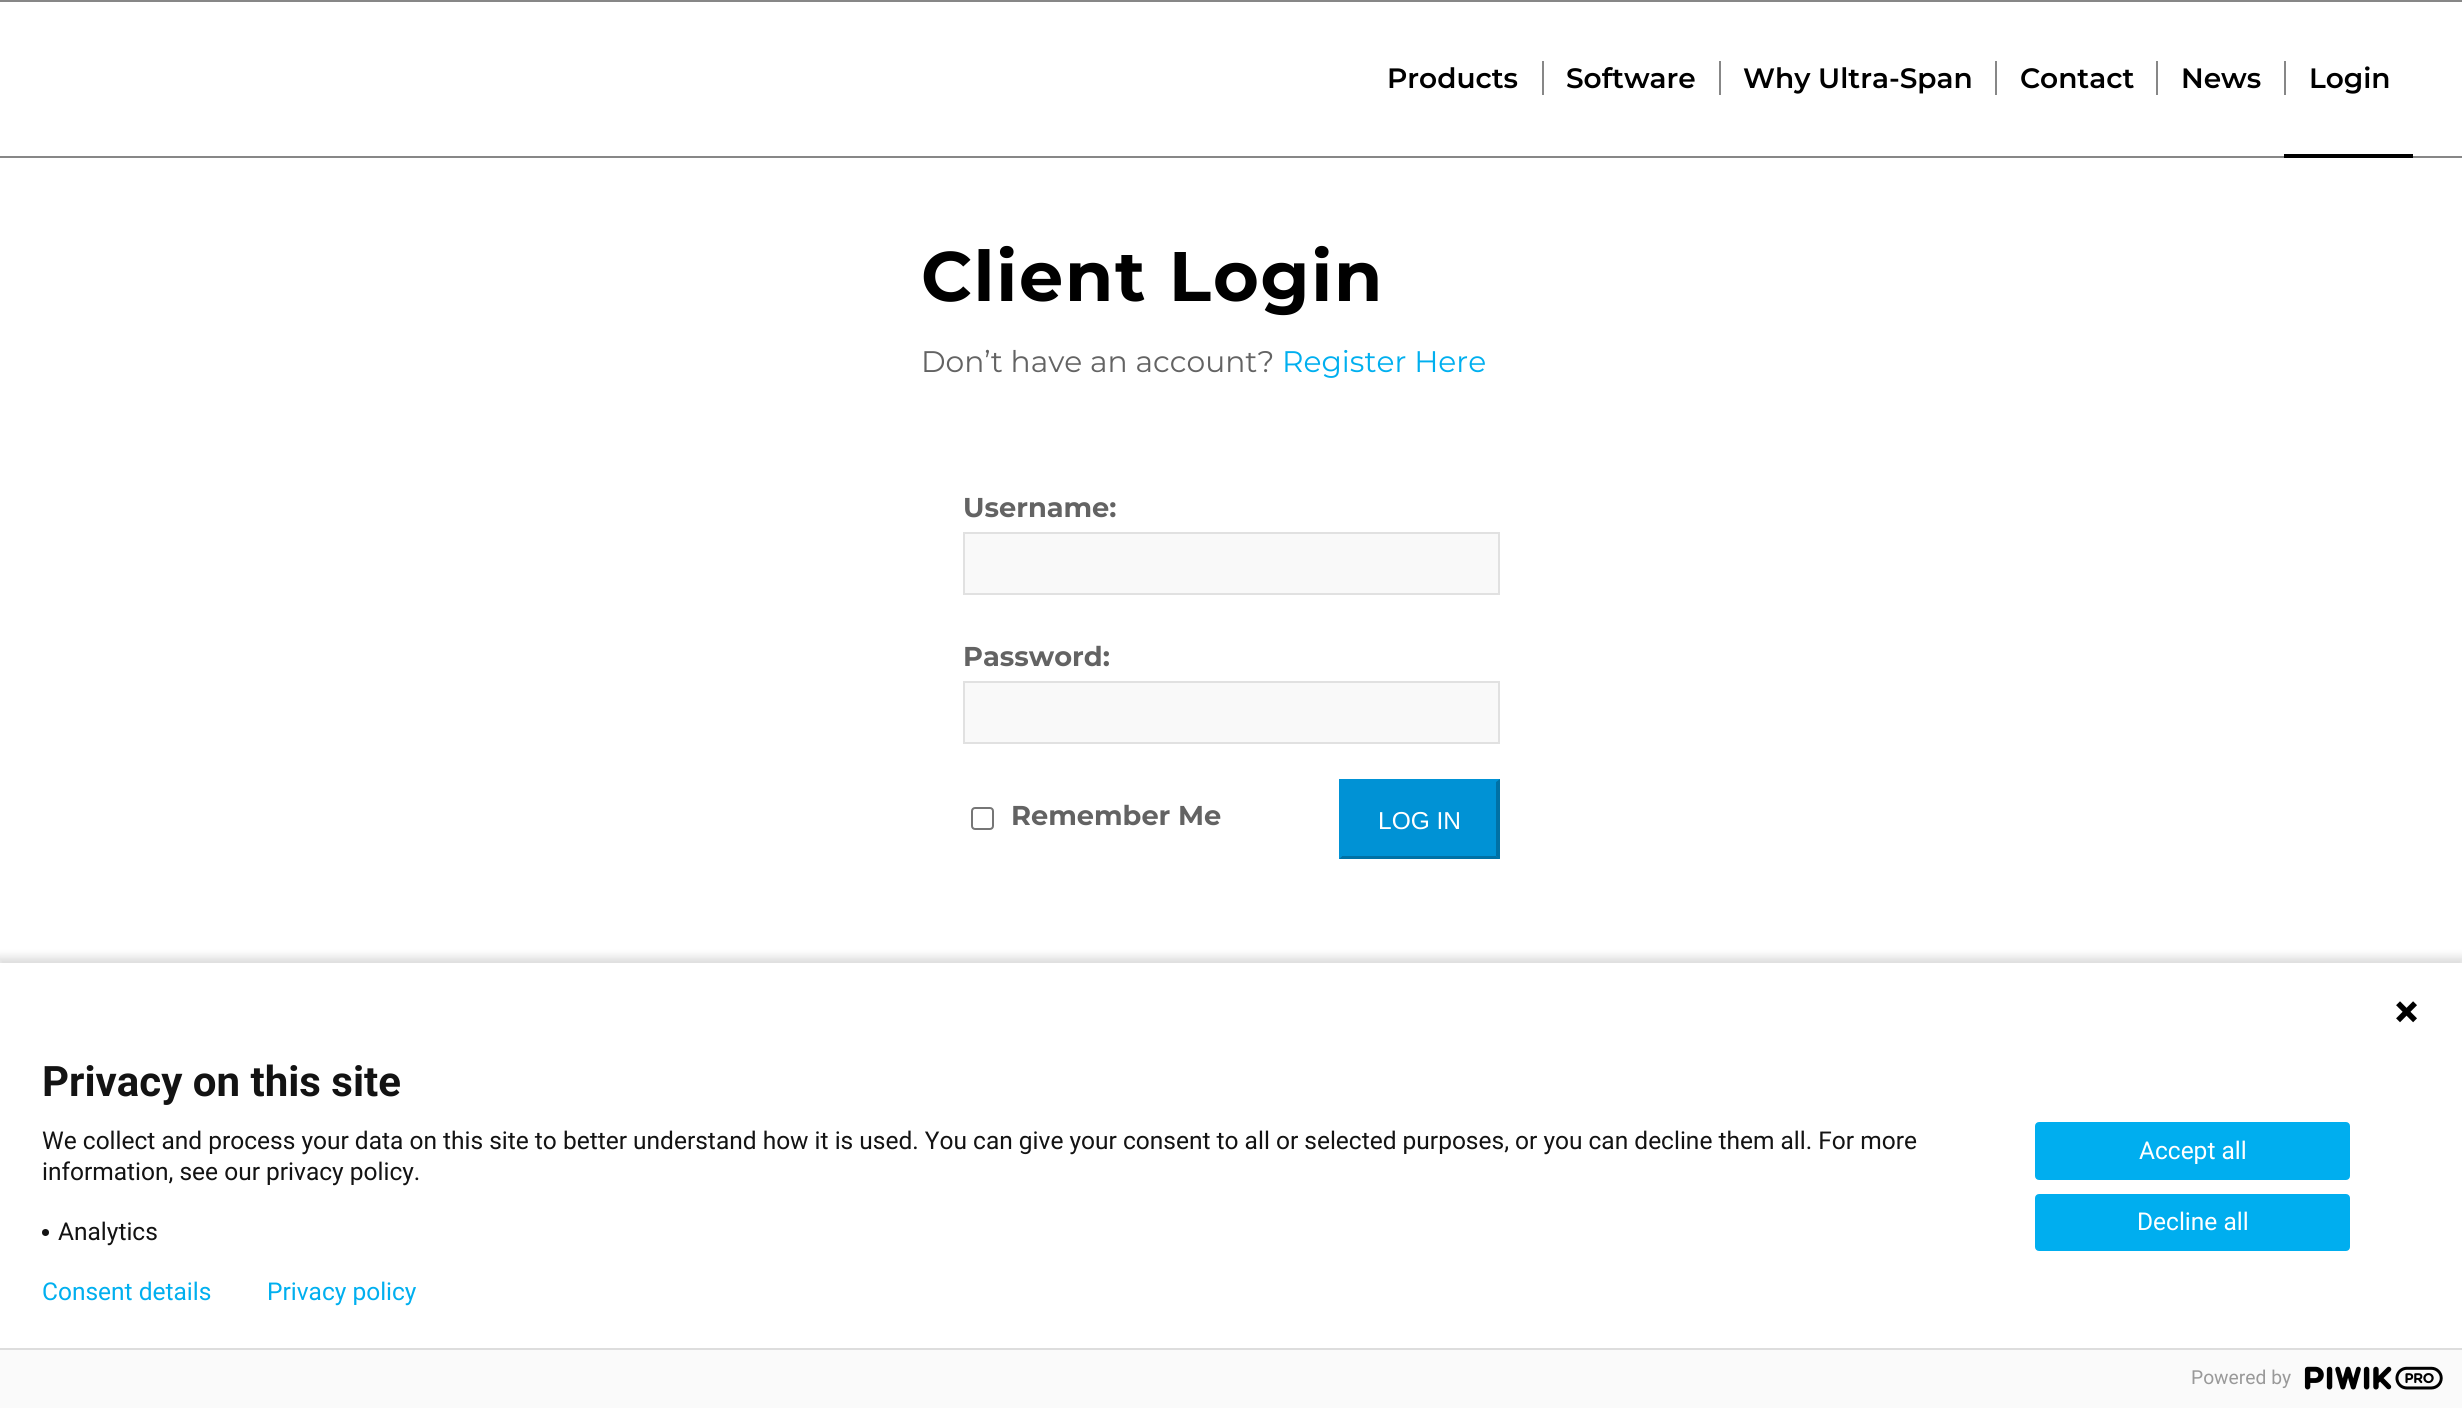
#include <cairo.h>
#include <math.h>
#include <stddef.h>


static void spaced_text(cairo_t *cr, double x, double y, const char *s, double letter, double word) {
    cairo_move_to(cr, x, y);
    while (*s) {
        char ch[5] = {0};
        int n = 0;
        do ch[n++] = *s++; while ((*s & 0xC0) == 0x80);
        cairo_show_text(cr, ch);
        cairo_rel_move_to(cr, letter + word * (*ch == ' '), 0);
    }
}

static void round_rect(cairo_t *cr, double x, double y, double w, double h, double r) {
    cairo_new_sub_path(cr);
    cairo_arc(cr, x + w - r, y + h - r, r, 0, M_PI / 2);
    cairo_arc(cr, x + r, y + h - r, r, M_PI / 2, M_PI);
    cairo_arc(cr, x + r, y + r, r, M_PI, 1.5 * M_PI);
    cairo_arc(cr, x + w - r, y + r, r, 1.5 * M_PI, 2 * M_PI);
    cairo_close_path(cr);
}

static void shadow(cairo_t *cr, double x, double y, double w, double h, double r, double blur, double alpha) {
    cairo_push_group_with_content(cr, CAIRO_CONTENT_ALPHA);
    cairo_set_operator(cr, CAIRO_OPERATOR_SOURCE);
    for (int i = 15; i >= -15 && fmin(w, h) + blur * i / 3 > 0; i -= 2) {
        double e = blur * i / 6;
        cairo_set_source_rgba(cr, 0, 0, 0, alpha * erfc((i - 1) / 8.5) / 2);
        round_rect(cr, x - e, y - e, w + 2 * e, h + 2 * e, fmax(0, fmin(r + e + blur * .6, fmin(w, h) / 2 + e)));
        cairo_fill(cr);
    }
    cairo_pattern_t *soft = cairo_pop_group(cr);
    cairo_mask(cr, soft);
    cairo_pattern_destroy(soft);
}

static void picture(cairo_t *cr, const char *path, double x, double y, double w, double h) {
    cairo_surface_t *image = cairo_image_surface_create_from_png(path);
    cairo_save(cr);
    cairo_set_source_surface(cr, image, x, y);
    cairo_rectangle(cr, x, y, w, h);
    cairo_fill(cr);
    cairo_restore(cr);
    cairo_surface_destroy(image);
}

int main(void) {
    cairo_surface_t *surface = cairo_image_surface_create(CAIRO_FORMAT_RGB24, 2462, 1408);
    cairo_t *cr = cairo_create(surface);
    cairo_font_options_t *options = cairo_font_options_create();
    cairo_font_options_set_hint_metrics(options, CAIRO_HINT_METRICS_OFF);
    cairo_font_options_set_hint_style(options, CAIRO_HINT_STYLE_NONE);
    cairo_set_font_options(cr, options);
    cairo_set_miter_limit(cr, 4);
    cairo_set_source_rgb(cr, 1, 1, 1);
    cairo_paint(cr);
    cairo_set_source_rgb(cr, 0.529, 0.529, 0.529);
    cairo_rectangle(cr, 0, 0, 2462, 2);
    cairo_fill(cr);
    cairo_rectangle(cr, 0, 156, 2462, 2);
    cairo_fill(cr);
    cairo_select_font_face(cr, "Montserrat SemiBold", CAIRO_FONT_SLANT_NORMAL, CAIRO_FONT_WEIGHT_NORMAL);
    cairo_set_font_size(cr, 28);
    cairo_set_source_rgb(cr, 0, 0, 0);
    cairo_move_to(cr, 1387, 88);
    cairo_show_text(cr, "Products");
    cairo_move_to(cr, 1566, 88);
    cairo_show_text(cr, "Software");
    cairo_set_source_rgb(cr, 0.529, 0.529, 0.529);
    cairo_rectangle(cr, 1542, 61, 2, 34);
    cairo_fill(cr);
    cairo_set_source_rgb(cr, 0, 0, 0);
    cairo_move_to(cr, 1743, 88);
    cairo_show_text(cr, "Why Ultra-Span");
    cairo_set_source_rgb(cr, 0.529, 0.529, 0.529);
    cairo_rectangle(cr, 1719, 61, 2, 34);
    cairo_fill(cr);
    cairo_set_source_rgb(cr, 0, 0, 0);
    cairo_move_to(cr, 2020, 88);
    cairo_show_text(cr, "Contact");
    cairo_set_source_rgb(cr, 0.529, 0.529, 0.529);
    cairo_rectangle(cr, 1995, 61, 2, 34);
    cairo_fill(cr);
    cairo_set_source_rgb(cr, 0, 0, 0);
    cairo_move_to(cr, 2181, 88);
    cairo_show_text(cr, "News");
    cairo_set_source_rgb(cr, 0.529, 0.529, 0.529);
    cairo_rectangle(cr, 2156, 61, 2, 34);
    cairo_fill(cr);
    cairo_set_source_rgb(cr, 0, 0, 0);
    cairo_move_to(cr, 2309, 88);
    cairo_show_text(cr, "Login");
    cairo_set_source_rgb(cr, 0.529, 0.529, 0.529);
    cairo_rectangle(cr, 2284, 61, 2, 34);
    cairo_fill(cr);
    cairo_set_source_rgb(cr, 0, 0, 0);
    cairo_rectangle(cr, 2284, 154, 129, 4);
    cairo_fill(cr);
    cairo_select_font_face(cr, "Montserrat", CAIRO_FONT_SLANT_NORMAL, CAIRO_FONT_WEIGHT_BOLD);
    cairo_set_font_size(cr, 70);
    spaced_text(cr, 921, 301, "Client Login", 1.75, 0);
    cairo_select_font_face(cr, "Montserrat", CAIRO_FONT_SLANT_NORMAL, CAIRO_FONT_WEIGHT_NORMAL);
    cairo_set_font_size(cr, 29.75);
    cairo_set_source_rgb(cr, 0.388, 0.388, 0.388);
    cairo_move_to(cr, 921, 372);
    cairo_show_text(cr, "Don’t have an account?");
    cairo_set_source_rgb(cr, 0, 0.686, 0.937);
    cairo_move_to(cr, 1282, 372);
    cairo_show_text(cr, "Register Here");
    cairo_select_font_face(cr, "Montserrat", CAIRO_FONT_SLANT_NORMAL, CAIRO_FONT_WEIGHT_BOLD);
    cairo_set_font_size(cr, 27.25);
    cairo_set_source_rgb(cr, 0.388, 0.388, 0.388);
    cairo_move_to(cr, 963, 517);
    cairo_show_text(cr, "Username:");
    cairo_set_source_rgb(cr, 0.973, 0.973, 0.973);
    cairo_rectangle(cr, 964, 533, 535, 61);
    cairo_fill_preserve(cr);
    cairo_set_source_rgb(cr, 0.882, 0.882, 0.882);
    cairo_stroke(cr);
    cairo_set_source_rgb(cr, 0.388, 0.388, 0.388);
    cairo_move_to(cr, 963, 666);
    cairo_show_text(cr, "Password:");
    cairo_set_source_rgb(cr, 0.973, 0.973, 0.973);
    cairo_rectangle(cr, 964, 682, 535, 61);
    cairo_fill_preserve(cr);
    cairo_set_source_rgb(cr, 0.882, 0.882, 0.882);
    cairo_stroke(cr);
    round_rect(cr, 972, 808, 21, 21, 3);
    cairo_set_source_rgb(cr, 0.463, 0.463, 0.463);
    cairo_stroke(cr);
    cairo_set_source_rgb(cr, 0.388, 0.388, 0.388);
    cairo_move_to(cr, 1011, 825);
    cairo_show_text(cr, "Remember Me");
    cairo_set_source_rgb(cr, 0, 0.573, 0.835);
    cairo_rectangle(cr, 1339, 779, 161, 80);
    cairo_fill(cr);
    cairo_set_source_rgb(cr, 0, 0.443, 0.647);
    cairo_new_path(cr);
    cairo_move_to(cr, 1500, 779);
    cairo_line_to(cr, 1500, 859);
    cairo_line_to(cr, 1496, 856);
    cairo_line_to(cr, 1496, 782);
    cairo_close_path(cr);
    cairo_fill(cr);
    cairo_new_path(cr);
    cairo_move_to(cr, 1500, 859);
    cairo_line_to(cr, 1339, 859);
    cairo_line_to(cr, 1342, 856);
    cairo_line_to(cr, 1496, 856);
    cairo_close_path(cr);
    cairo_fill(cr);
    cairo_set_source_rgb(cr, 0, 0.573, 0.835);
    cairo_new_path(cr);
    cairo_move_to(cr, 1339, 859);
    cairo_line_to(cr, 1339, 779);
    cairo_line_to(cr, 1342, 782);
    cairo_line_to(cr, 1342, 856);
    cairo_close_path(cr);
    cairo_fill(cr);
    cairo_select_font_face(cr, "Liberation Sans", CAIRO_FONT_SLANT_NORMAL, CAIRO_FONT_WEIGHT_NORMAL);
    cairo_set_font_size(cr, 24.5);
    cairo_set_source_rgb(cr, 1, 1, 1);
    cairo_move_to(cr, 1378, 829);
    cairo_show_text(cr, "LOG IN");
    cairo_set_source_rgb(cr, 0, 0, 0);
    shadow(cr, -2, 957, 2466, 450, 0, 4.5, 0.14);
    cairo_set_source_rgb(cr, 1, 1, 1);
    cairo_rectangle(cr, 0, 963, 2462, 385);
    cairo_fill(cr);
    picture(cr, "img1.png", 2396, 1001, 21, 22);
    cairo_select_font_face(cr, "Roboto", CAIRO_FONT_SLANT_NORMAL, CAIRO_FONT_WEIGHT_BOLD);
    cairo_set_font_size(cr, 42);
    cairo_set_source_rgb(cr, 0.075, 0.075, 0.075);
    cairo_move_to(cr, 42, 1096);
    cairo_show_text(cr, "Privacy on this site");
    cairo_select_font_face(cr, "Roboto", CAIRO_FONT_SLANT_NORMAL, CAIRO_FONT_WEIGHT_NORMAL);
    cairo_set_font_size(cr, 24.5);
    cairo_move_to(cr, 42, 1149);
    cairo_show_text(cr, "We collect and process your data on this site to better understand how it is used. You can give your consent to all or selected purposes, or you can decline them all. For more");
    cairo_move_to(cr, 42, 1180);
    cairo_show_text(cr, "information, see our privacy policy.");
    cairo_new_path(cr);
    cairo_arc(cr, 45.5, 1232.5, 3.5, 0, 2 * M_PI);
    cairo_fill(cr);
    cairo_move_to(cr, 58, 1240);
    cairo_show_text(cr, "Analytics");
    cairo_set_source_rgb(cr, 0, 0.682, 0.937);
    round_rect(cr, 2036, 1123, 313, 56, 3);
    cairo_fill_preserve(cr);
    cairo_stroke(cr);
    cairo_set_source_rgb(cr, 1, 1, 1);
    cairo_move_to(cr, 2139, 1159);
    cairo_show_text(cr, "Accept all");
    cairo_set_source_rgb(cr, 0, 0.682, 0.937);
    round_rect(cr, 2036, 1195, 313, 55, 3);
    cairo_fill_preserve(cr);
    cairo_stroke(cr);
    cairo_set_source_rgb(cr, 1, 1, 1);
    cairo_move_to(cr, 2137, 1230);
    cairo_show_text(cr, "Decline all");
    cairo_set_source_rgb(cr, 0, 0.686, 0.937);
    cairo_move_to(cr, 42, 1300);
    cairo_show_text(cr, "Consent details");
    cairo_move_to(cr, 267, 1300);
    cairo_show_text(cr, "Privacy policy");
    cairo_set_source_rgb(cr, 0.98, 0.98, 0.98);
    cairo_rectangle(cr, 0, 1350, 2462, 58);
    cairo_fill(cr);
    cairo_set_source_rgb(cr, 0.867, 0.867, 0.867);
    cairo_rectangle(cr, 0, 1348, 2462, 2);
    cairo_fill(cr);
    cairo_set_font_size(cr, 19.25);
    cairo_set_source_rgb(cr, 0.6, 0.6, 0.6);
    cairo_move_to(cr, 2191, 1384);
    cairo_show_text(cr, "Powered by");
    picture(cr, "img2.png", 2304, 1366, 139, 24);
    cairo_surface_write_to_png(surface, "page.png");
    cairo_font_options_destroy(options);
    cairo_destroy(cr);
    cairo_surface_destroy(surface);
    return 0;
}
